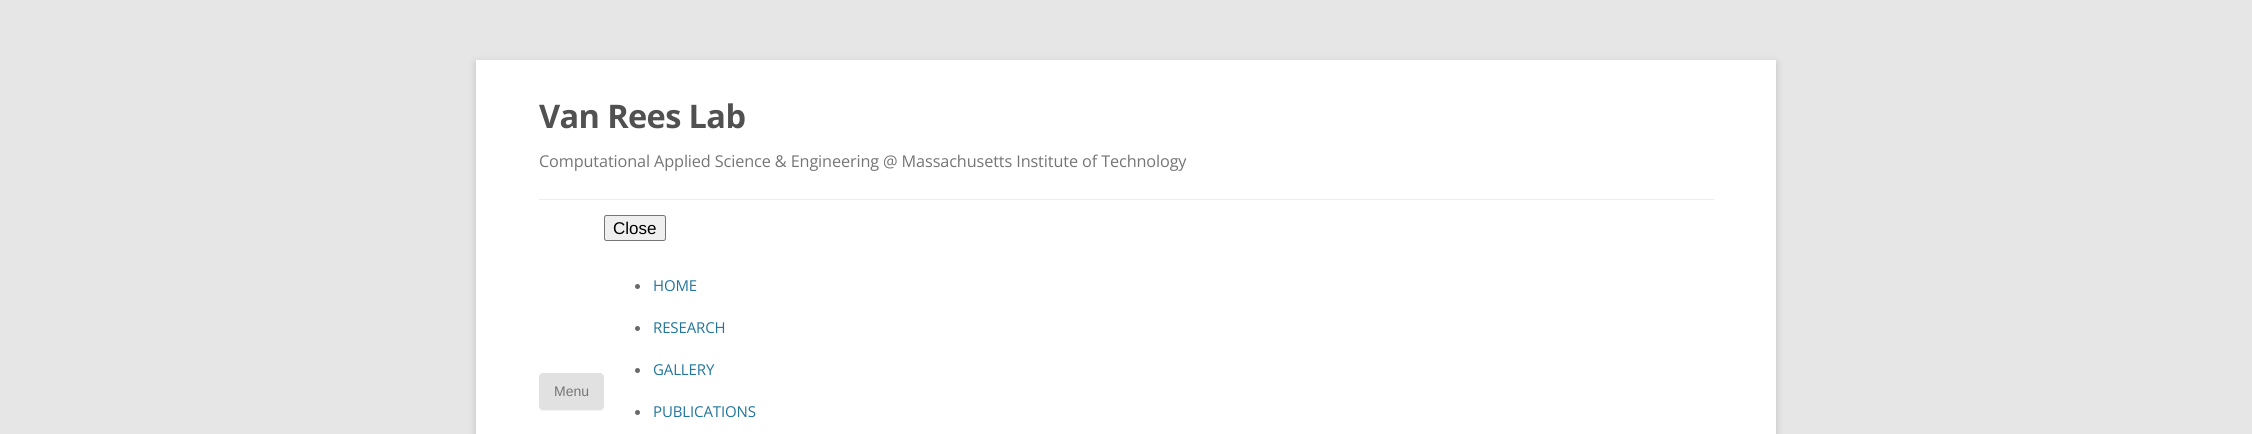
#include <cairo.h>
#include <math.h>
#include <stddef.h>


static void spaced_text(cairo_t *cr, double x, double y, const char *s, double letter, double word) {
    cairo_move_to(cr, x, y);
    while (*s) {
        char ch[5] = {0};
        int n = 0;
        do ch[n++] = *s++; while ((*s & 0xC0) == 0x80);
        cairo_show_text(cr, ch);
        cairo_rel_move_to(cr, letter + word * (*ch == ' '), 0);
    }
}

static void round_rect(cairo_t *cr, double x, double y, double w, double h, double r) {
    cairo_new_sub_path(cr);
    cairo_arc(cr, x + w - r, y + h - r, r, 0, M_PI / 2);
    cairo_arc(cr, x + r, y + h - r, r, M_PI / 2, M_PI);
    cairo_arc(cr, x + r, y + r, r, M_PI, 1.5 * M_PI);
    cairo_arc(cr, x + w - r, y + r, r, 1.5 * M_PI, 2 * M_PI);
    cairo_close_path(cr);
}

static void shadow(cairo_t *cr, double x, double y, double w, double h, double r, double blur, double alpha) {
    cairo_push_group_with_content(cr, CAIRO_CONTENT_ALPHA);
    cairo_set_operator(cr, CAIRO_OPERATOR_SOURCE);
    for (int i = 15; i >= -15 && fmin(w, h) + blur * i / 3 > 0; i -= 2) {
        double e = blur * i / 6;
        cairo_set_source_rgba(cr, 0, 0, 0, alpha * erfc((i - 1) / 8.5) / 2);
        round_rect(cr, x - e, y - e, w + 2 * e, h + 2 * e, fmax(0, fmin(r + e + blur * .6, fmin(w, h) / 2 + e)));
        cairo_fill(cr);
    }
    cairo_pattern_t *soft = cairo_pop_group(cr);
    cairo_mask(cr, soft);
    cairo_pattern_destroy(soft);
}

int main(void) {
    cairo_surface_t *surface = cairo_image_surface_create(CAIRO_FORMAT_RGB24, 2252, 434);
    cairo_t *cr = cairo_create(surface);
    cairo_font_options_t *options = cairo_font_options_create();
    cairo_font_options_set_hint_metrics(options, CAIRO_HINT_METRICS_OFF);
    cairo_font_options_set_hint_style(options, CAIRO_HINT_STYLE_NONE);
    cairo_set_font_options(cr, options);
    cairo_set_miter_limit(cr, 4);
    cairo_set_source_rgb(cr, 0.902, 0.902, 0.902);
    cairo_paint(cr);
    cairo_set_source_rgb(cr, 0.392, 0.392, 0.392);
    shadow(cr, 476, 63, 1300, 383, 0, 4, 0.3);
    cairo_set_source_rgb(cr, 1, 1, 1);
    cairo_rectangle(cr, 476, 60, 1300, 374);
    cairo_fill(cr);
    cairo_select_font_face(cr, "Open Sans", CAIRO_FONT_SLANT_NORMAL, CAIRO_FONT_WEIGHT_BOLD);
    cairo_set_font_size(cr, 32.5);
    cairo_set_source_rgb(cr, 0.318, 0.318, 0.318);
    spaced_text(cr, 539, 128, "Van Rees Lab", -0.6, 0);
    cairo_select_font_face(cr, "Open Sans", CAIRO_FONT_SLANT_NORMAL, CAIRO_FONT_WEIGHT_NORMAL);
    cairo_set_font_size(cr, 16.25);
    cairo_set_source_rgb(cr, 0.459, 0.459, 0.459);
    spaced_text(cr, 539, 167, "Computational Applied Science & Engineering @ Massachusetts Institute of Technology", -0.12, 0);
    cairo_set_source_rgb(cr, 0.929, 0.929, 0.929);
    cairo_rectangle(cr, 539, 199, 1175, 1);
    cairo_fill(cr);
    cairo_set_source_rgb(cr, 0.957, 0.957, 0.957);
    cairo_new_path(cr);
    cairo_move_to(cr, 539, 408);
    cairo_curve_to(cr, 539, 410, 541, 411, 543, 411);
    cairo_line_to(cr, 601, 411);
    cairo_curve_to(cr, 605, 410, 604, 405, 604, 402);
    cairo_line_to(cr, 604, 377);
    cairo_curve_to(cr, 604, 381, 605, 407, 603, 409);
    cairo_line_to(cr, 600, 410);
    cairo_line_to(cr, 541, 410);
    cairo_close_path(cr);
    cairo_fill(cr);
    cairo_set_source_rgb(cr, 0.882, 0.882, 0.882);
    round_rect(cr, 539.5, 373.5, 64, 36, 3.5);
    cairo_fill_preserve(cr);
    cairo_set_line_width(cr, 1);
    cairo_stroke(cr);
    cairo_select_font_face(cr, "Liberation Sans", CAIRO_FONT_SLANT_NORMAL, CAIRO_FONT_WEIGHT_NORMAL);
    cairo_set_font_size(cr, 14);
    cairo_set_source_rgb(cr, 0.459, 0.459, 0.459);
    cairo_move_to(cr, 554, 396);
    cairo_show_text(cr, "Menu");
    cairo_set_source_rgb(cr, 1, 1, 1);
    cairo_rectangle(cr, 604, 393, 1, 2);
    cairo_fill(cr);
    cairo_set_source_rgb(cr, 0.937, 0.937, 0.937);
    round_rect(cr, 604.5, 215.5, 61, 25, 2);
    cairo_fill_preserve(cr);
    cairo_set_source_rgb(cr, 0.463, 0.463, 0.463);
    cairo_stroke(cr);
    cairo_set_font_size(cr, 17);
    cairo_set_source_rgb(cr, 0, 0, 0);
    cairo_move_to(cr, 613, 234);
    cairo_show_text(cr, "Close");
    cairo_set_source_rgb(cr, 0.416, 0.416, 0.416);
    cairo_new_path(cr);
    cairo_arc(cr, 637.5, 286.5, 2.5, 0, 2 * M_PI);
    cairo_fill(cr);
    cairo_select_font_face(cr, "Open Sans", CAIRO_FONT_SLANT_NORMAL, CAIRO_FONT_WEIGHT_NORMAL);
    cairo_set_font_size(cr, 15);
    cairo_set_source_rgb(cr, 0.129, 0.459, 0.608);
    spaced_text(cr, 653, 291, "HOME", -0.12, 0);
    cairo_set_source_rgb(cr, 0.416, 0.416, 0.416);
    cairo_new_path(cr);
    cairo_arc(cr, 637.5, 328.5, 2.5, 0, 2 * M_PI);
    cairo_fill(cr);
    cairo_set_source_rgb(cr, 0.129, 0.459, 0.608);
    spaced_text(cr, 653, 333, "RESEARCH", -0.12, 0);
    cairo_set_source_rgb(cr, 0.416, 0.416, 0.416);
    cairo_new_path(cr);
    cairo_arc(cr, 637.5, 370.5, 2.5, 0, 2 * M_PI);
    cairo_fill(cr);
    cairo_set_source_rgb(cr, 0.129, 0.459, 0.608);
    spaced_text(cr, 653, 375, "GALLERY", -0.12, 0);
    cairo_set_source_rgb(cr, 0.416, 0.416, 0.416);
    cairo_new_path(cr);
    cairo_arc(cr, 637.5, 412.5, 2.5, 0, 2 * M_PI);
    cairo_fill(cr);
    cairo_set_source_rgb(cr, 0.129, 0.459, 0.608);
    spaced_text(cr, 653, 417, "PUBLICATIONS", -0.12, 0);
    cairo_surface_write_to_png(surface, "page.png");
    cairo_font_options_destroy(options);
    cairo_destroy(cr);
    cairo_surface_destroy(surface);
    return 0;
}
